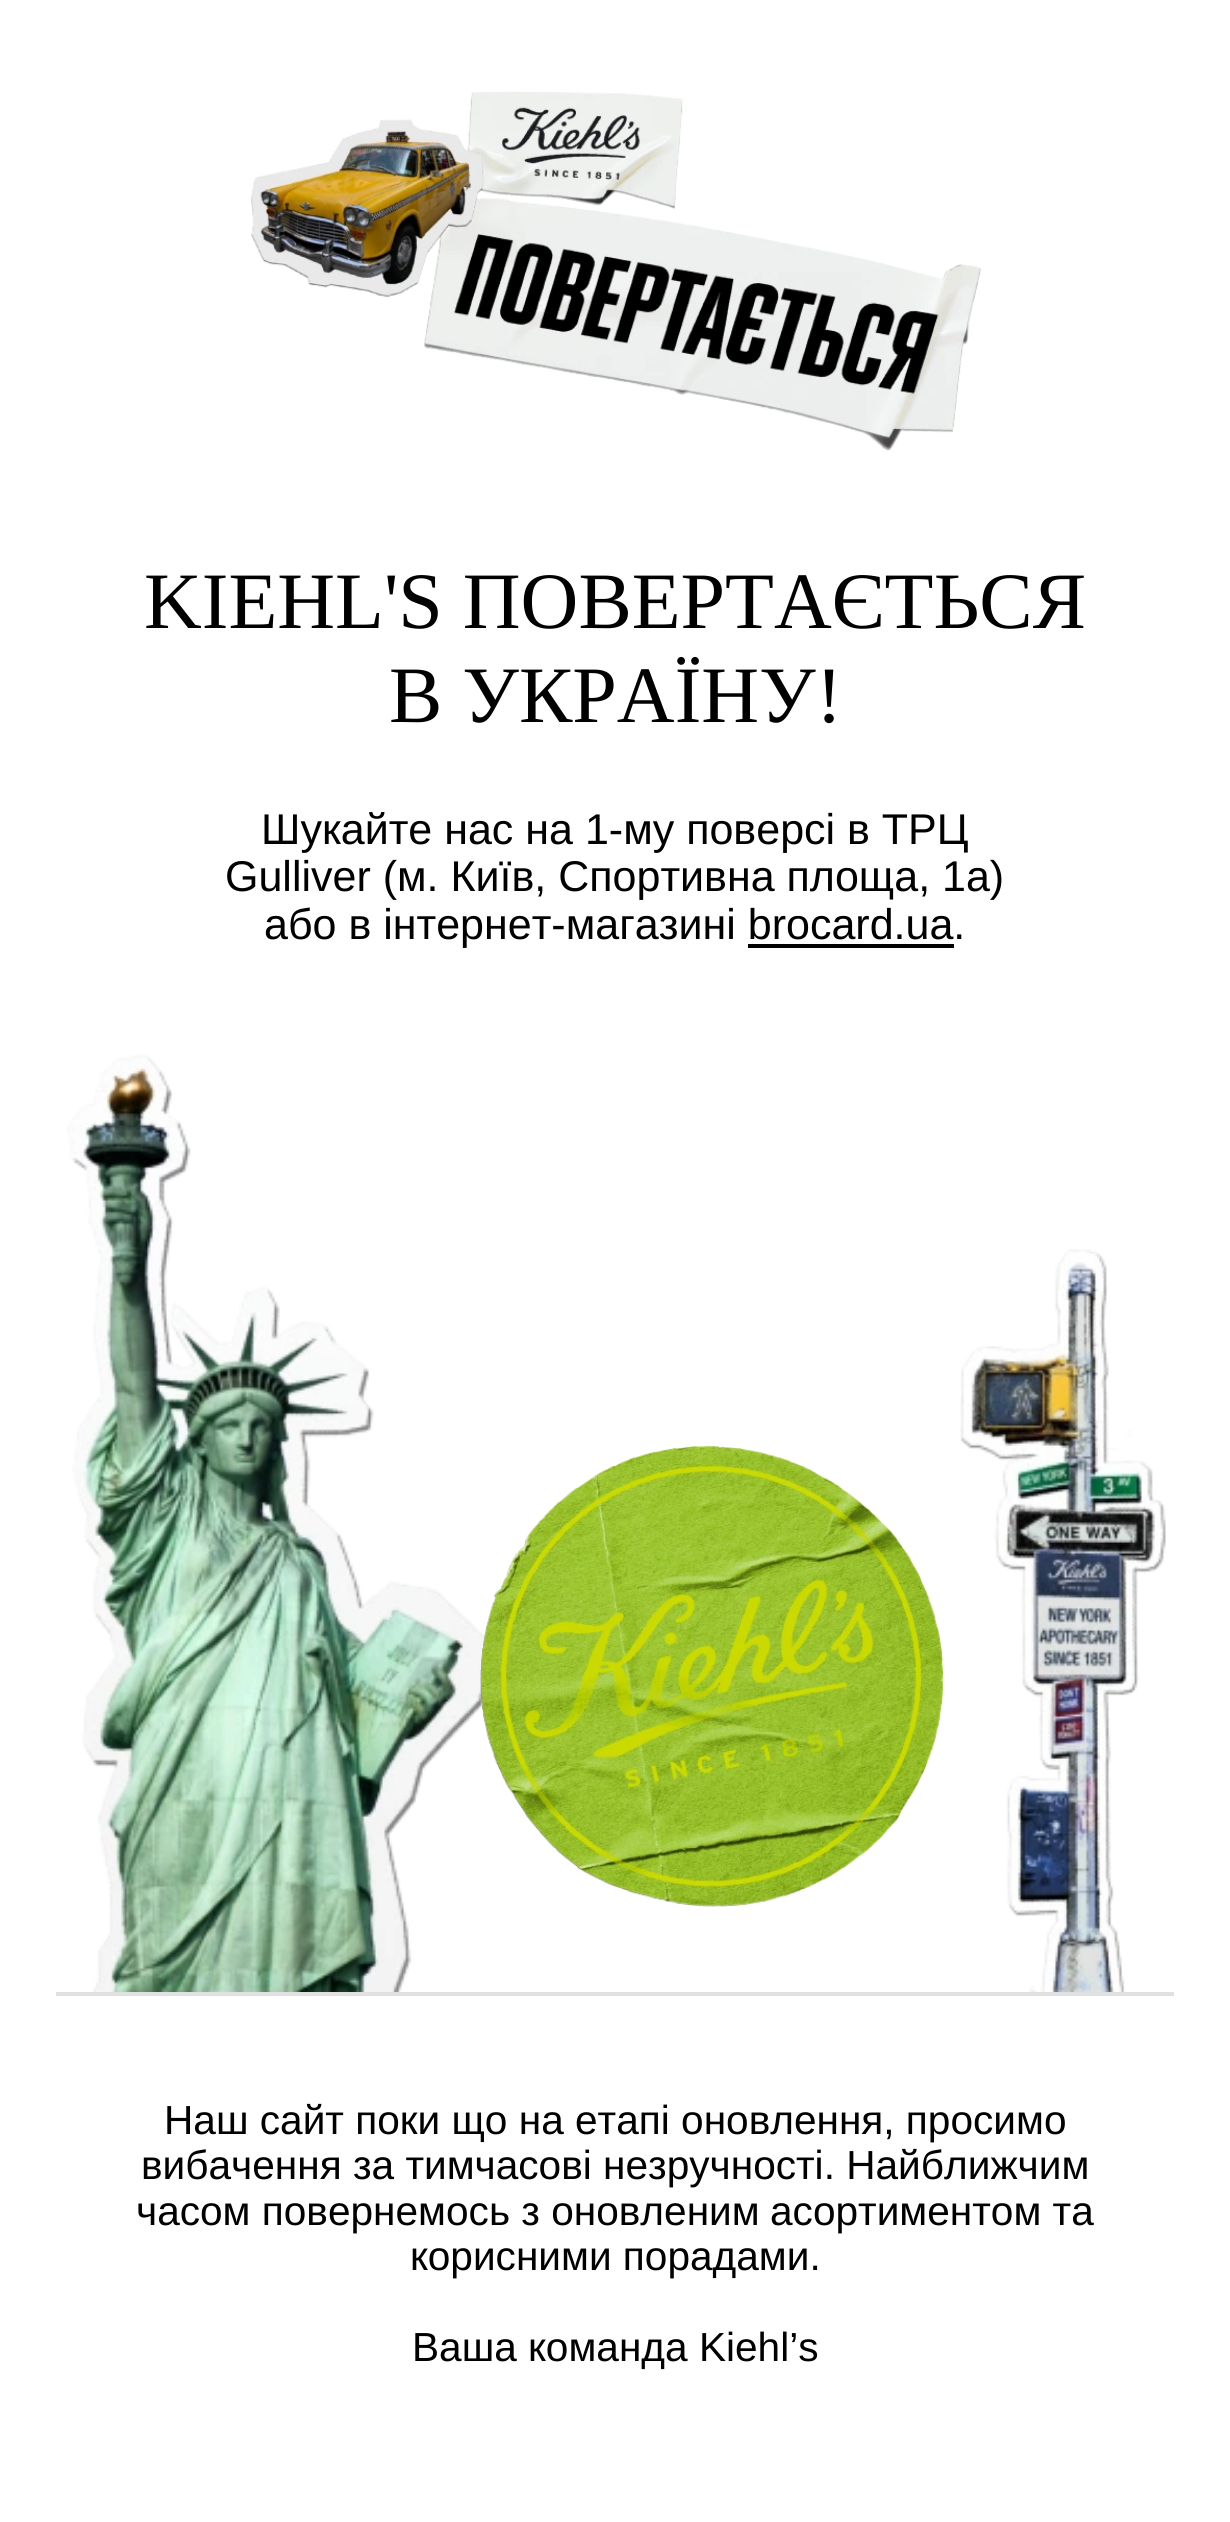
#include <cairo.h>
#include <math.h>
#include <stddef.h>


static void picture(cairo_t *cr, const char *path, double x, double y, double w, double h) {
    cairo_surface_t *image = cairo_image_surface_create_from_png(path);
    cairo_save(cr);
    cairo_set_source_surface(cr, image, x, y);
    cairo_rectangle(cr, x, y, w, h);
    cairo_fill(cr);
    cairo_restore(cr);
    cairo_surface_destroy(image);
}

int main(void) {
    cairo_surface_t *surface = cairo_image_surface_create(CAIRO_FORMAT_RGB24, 1230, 2522);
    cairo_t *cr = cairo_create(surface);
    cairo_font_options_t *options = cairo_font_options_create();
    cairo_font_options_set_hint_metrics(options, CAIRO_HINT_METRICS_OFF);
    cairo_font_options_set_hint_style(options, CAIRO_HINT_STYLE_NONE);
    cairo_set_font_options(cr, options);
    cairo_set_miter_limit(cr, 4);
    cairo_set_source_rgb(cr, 1, 1, 1);
    cairo_paint(cr);
    picture(cr, "img1.png", 251, 91, 730, 360);
    cairo_select_font_face(cr, "Liberation Serif", CAIRO_FONT_SLANT_NORMAL, CAIRO_FONT_WEIGHT_NORMAL);
    cairo_set_font_size(cr, 80);
    cairo_set_source_rgb(cr, 0, 0, 0);
    cairo_move_to(cr, 144, 628);
    cairo_show_text(cr, "KIEHL'S ПОВЕРТАЄТЬСЯ");
    cairo_move_to(cr, 389, 722);
    cairo_show_text(cr, "В УКРАЇНУ!");
    cairo_select_font_face(cr, "Liberation Sans", CAIRO_FONT_SLANT_NORMAL, CAIRO_FONT_WEIGHT_NORMAL);
    cairo_set_font_size(cr, 43);
    cairo_move_to(cr, 261, 844);
    cairo_show_text(cr, "Шукайте нас на 1-му поверсі в ТРЦ");
    cairo_move_to(cr, 225, 891);
    cairo_show_text(cr, "Gulliver (м. Київ, Спортивна площа, 1а)");
    cairo_move_to(cr, 264, 939);
    cairo_show_text(cr, "або в інтернет-магазині brocard.ua.");
    cairo_rectangle(cr, 748, 944, 206, 4);
    cairo_fill(cr);
    cairo_set_source_rgb(cr, 0.882, 0.882, 0.882);
    cairo_rectangle(cr, 56, 1992, 1118, 4);
    cairo_fill(cr);
    picture(cr, "img2.png", 67, 1054, 419, 938);
    picture(cr, "img3.png", 480, 1445, 465, 462);
    picture(cr, "img4.png", 960, 1249, 206, 743);
    cairo_set_font_size(cr, 40.6);
    cairo_set_source_rgb(cr, 0, 0, 0);
    cairo_move_to(cr, 164, 2134);
    cairo_show_text(cr, "Наш сайт поки що на етапі оновлення, просимо");
    cairo_move_to(cr, 141, 2179);
    cairo_show_text(cr, "вибачення за тимчасові незручності. Найближчим");
    cairo_move_to(cr, 136, 2225);
    cairo_show_text(cr, "часом повернемось з оновленим");
    cairo_move_to(cr, 770, 2225);
    cairo_show_text(cr, "асортиментом та");
    cairo_move_to(cr, 410, 2270);
    cairo_show_text(cr, "корисними порадами.");
    cairo_move_to(cr, 412, 2361);
    cairo_show_text(cr, "Ваша команда Kiehl’s");
    cairo_surface_write_to_png(surface, "page.png");
    cairo_font_options_destroy(options);
    cairo_destroy(cr);
    cairo_surface_destroy(surface);
    return 0;
}
